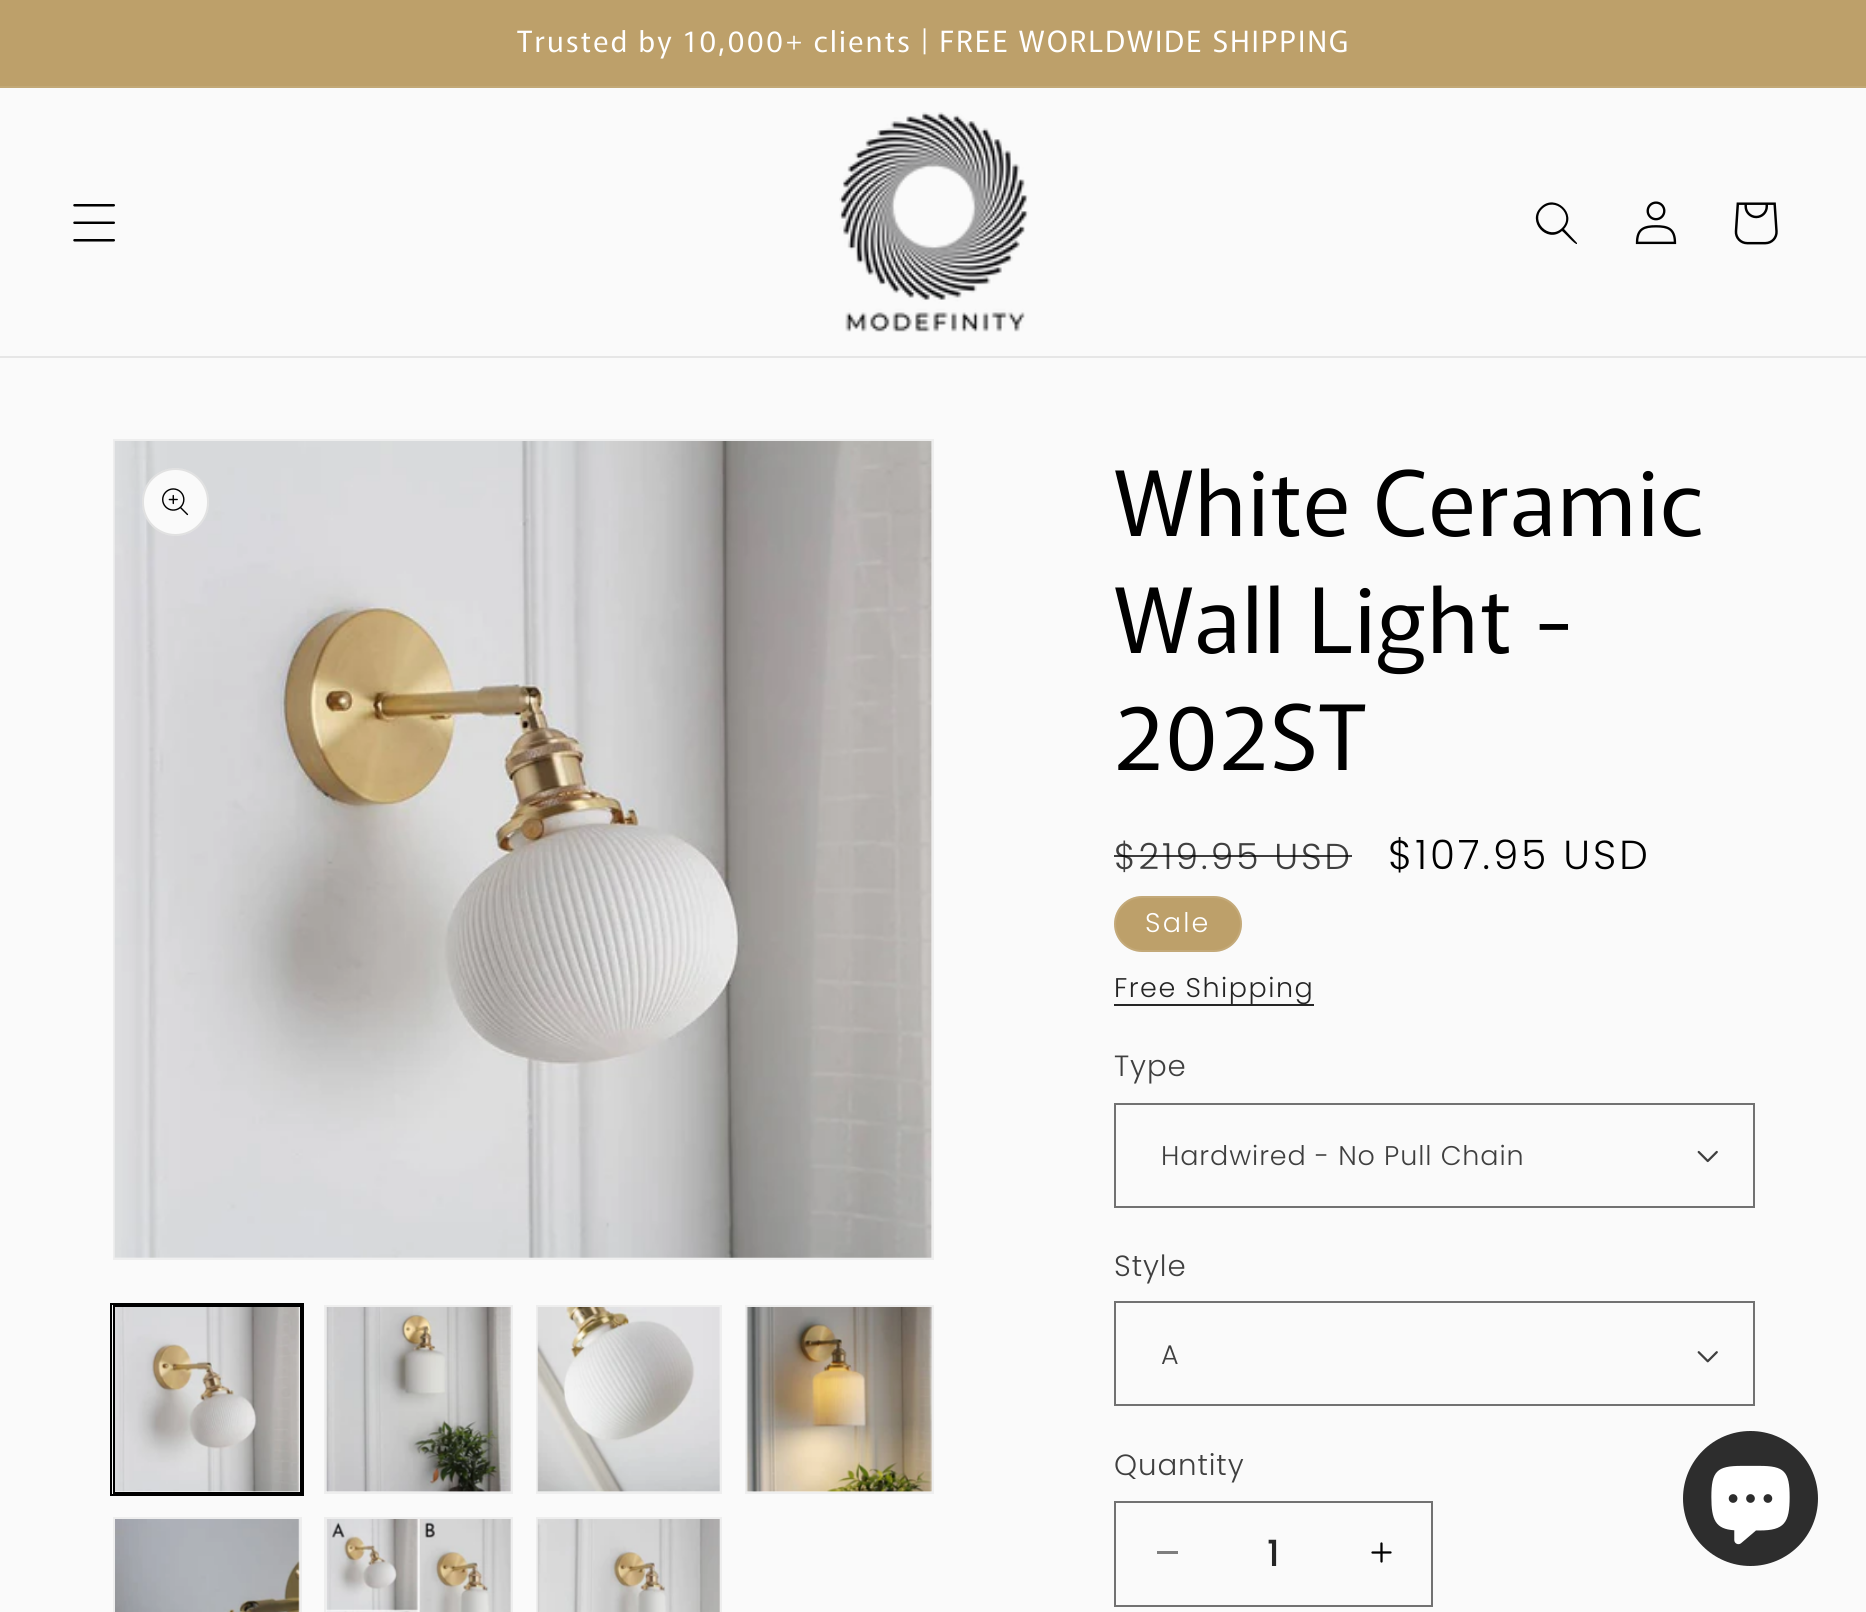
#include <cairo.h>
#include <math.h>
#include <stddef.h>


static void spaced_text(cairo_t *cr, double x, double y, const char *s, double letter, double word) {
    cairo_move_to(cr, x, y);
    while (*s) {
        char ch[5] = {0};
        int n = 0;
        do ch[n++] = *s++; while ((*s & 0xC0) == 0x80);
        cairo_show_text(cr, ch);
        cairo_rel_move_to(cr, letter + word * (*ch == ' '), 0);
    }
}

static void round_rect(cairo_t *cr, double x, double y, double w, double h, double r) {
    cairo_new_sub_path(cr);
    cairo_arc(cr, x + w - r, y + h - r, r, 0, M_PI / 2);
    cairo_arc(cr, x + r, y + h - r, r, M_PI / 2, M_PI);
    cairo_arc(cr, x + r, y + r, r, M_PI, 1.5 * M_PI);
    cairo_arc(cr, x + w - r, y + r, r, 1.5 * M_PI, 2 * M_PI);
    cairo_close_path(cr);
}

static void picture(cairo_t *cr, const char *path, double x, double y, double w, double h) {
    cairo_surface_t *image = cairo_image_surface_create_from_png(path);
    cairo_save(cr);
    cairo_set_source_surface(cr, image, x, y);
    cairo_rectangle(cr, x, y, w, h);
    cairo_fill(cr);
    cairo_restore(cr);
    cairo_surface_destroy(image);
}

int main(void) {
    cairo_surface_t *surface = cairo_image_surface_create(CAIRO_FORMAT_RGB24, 1866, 1612);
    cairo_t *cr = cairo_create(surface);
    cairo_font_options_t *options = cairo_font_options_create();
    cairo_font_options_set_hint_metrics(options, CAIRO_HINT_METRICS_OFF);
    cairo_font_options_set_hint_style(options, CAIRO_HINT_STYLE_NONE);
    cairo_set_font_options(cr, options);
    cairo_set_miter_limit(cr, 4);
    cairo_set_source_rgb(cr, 0.98, 0.98, 0.98);
    cairo_paint(cr);
    cairo_set_source_rgb(cr, 0.741, 0.627, 0.416);
    cairo_rectangle(cr, 0, 0, 1866, 86);
    cairo_fill(cr);
    cairo_set_source_rgb(cr, 0.761, 0.659, 0.463);
    cairo_rectangle(cr, 0, 86, 1866, 2);
    cairo_fill(cr);
    cairo_select_font_face(cr, "Murecho", CAIRO_FONT_SLANT_NORMAL, CAIRO_FONT_WEIGHT_NORMAL);
    cairo_set_font_size(cr, 29.25);
    cairo_set_source_rgb(cr, 1, 1, 1);
    spaced_text(cr, 517, 52, "Trusted by 10,000+ clients | FREE WORLDWIDE SHIPPING", 2.25, 0);
    cairo_set_source_rgb(cr, 0.902, 0.902, 0.902);
    cairo_rectangle(cr, 0, 356, 1866, 2);
    cairo_fill(cr);
    picture(cr, "img1.png", 73, 204, 42, 38);
    picture(cr, "img2.png", 839, 112, 190, 220);
    cairo_set_source_rgb(cr, 0, 0, 0);
    cairo_set_fill_rule(cr, CAIRO_FILL_RULE_EVEN_ODD);
    cairo_new_path(cr);
    cairo_move_to(cr, 1562, 228);
    cairo_curve_to(cr, 1549, 241, 1530, 221, 1542, 209);
    cairo_curve_to(cr, 1555, 196, 1575, 215, 1562, 228);
    cairo_close_path(cr);
    cairo_move_to(cr, 1562, 231);
    cairo_curve_to(cr, 1547, 244, 1526, 221, 1541, 207);
    cairo_curve_to(cr, 1555, 193, 1578, 214, 1564, 229);
    cairo_line_to(cr, 1577, 243);
    cairo_line_to(cr, 1577, 244);
    cairo_curve_to(cr, 1575, 245, 1564, 232, 1562, 231);
    cairo_close_path(cr);
    cairo_fill(cr);
    picture(cr, "img3.png", 1635, 201, 42, 44);
    picture(cr, "img4.png", 1734, 202, 44, 43);
    cairo_rectangle(cr, 114, 440, 819, 819);
    cairo_set_source_rgb(cr, 0.933, 0.933, 0.933);
    cairo_stroke(cr);
    picture(cr, "img5.png", 114, 441, 818, 817);
    cairo_set_source_rgb(cr, 0.98, 0.98, 0.98);
    round_rect(cr, 142, 468, 67, 68, 33.5);
    cairo_fill(cr);
    round_rect(cr, 143, 469, 65, 66, 32.5);
    cairo_set_source_rgba(cr, 0, 0, 0, 0.1);
    cairo_stroke(cr);
    picture(cr, "img6.png", 162, 488, 27, 28);
    cairo_rectangle(cr, 111, 1304, 192, 191);
    cairo_set_source_rgb(cr, 0, 0, 0);
    cairo_stroke(cr);
    cairo_rectangle(cr, 114, 1306, 187, 187);
    cairo_stroke(cr);
    picture(cr, "img7.png", 115, 1307, 185, 185);
    cairo_rectangle(cr, 325, 1306, 187, 187);
    cairo_set_source_rgb(cr, 0.933, 0.933, 0.933);
    cairo_stroke(cr);
    picture(cr, "img8.png", 325, 1307, 186, 185);
    cairo_rectangle(cr, 537, 1306, 184, 187);
    cairo_stroke(cr);
    picture(cr, "img9.png", 537, 1307, 183, 185);
    cairo_rectangle(cr, 746, 1306, 187, 187);
    cairo_stroke(cr);
    picture(cr, "img10.png", 746, 1307, 186, 185);
    cairo_rectangle(cr, 114, 1518, 187, 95);
    cairo_stroke(cr);
    picture(cr, "img11.png", 115, 1519, 185, 93);
    cairo_rectangle(cr, 325, 1518, 187, 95);
    cairo_stroke(cr);
    picture(cr, "img12.png", 326, 1519, 185, 93);
    cairo_rectangle(cr, 537, 1518, 184, 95);
    cairo_stroke(cr);
    picture(cr, "img13.png", 537, 1519, 183, 93);
    cairo_set_font_size(cr, 90);
    cairo_set_source_rgb(cr, 0, 0, 0);
    spaced_text(cr, 1114, 536, "White Ceramic", 1.4, 0);
    spaced_text(cr, 1114, 653, "Wall Light -", 1.4, 0);
    spaced_text(cr, 1114, 770, "202ST", 1.4, 0);
    cairo_select_font_face(cr, "Poppins Light", CAIRO_FONT_SLANT_NORMAL, CAIRO_FONT_WEIGHT_NORMAL);
    cairo_set_font_size(cr, 36);
    cairo_set_source_rgb(cr, 0.247, 0.247, 0.247);
    spaced_text(cr, 1114, 869, "$219.95 USD", 3, 0);
    cairo_set_source_rgba(cr, 0, 0, 0, 0.75);
    cairo_rectangle(cr, 1114, 855, 238, 2);
    cairo_fill(cr);
    cairo_set_font_size(cr, 40.5);
    cairo_set_source_rgb(cr, 0, 0, 0);
    spaced_text(cr, 1388, 869, "$107.95 USD", 3, 0);
    cairo_set_source_rgb(cr, 0.741, 0.627, 0.416);
    round_rect(cr, 1114, 896, 128, 56, 28);
    cairo_fill(cr);
    round_rect(cr, 1115, 897, 126, 54, 27);
    cairo_set_source_rgba(cr, 1, 1, 1, 0.1);
    cairo_stroke(cr);
    cairo_set_font_size(cr, 27);
    cairo_set_source_rgb(cr, 1, 1, 1);
    spaced_text(cr, 1145, 932, "Sale", 2.25, 0);
    cairo_set_source_rgb(cr, 0.149, 0.149, 0.149);
    cairo_rectangle(cr, 1114, 1004, 200, 2);
    cairo_fill(cr);
    cairo_set_source_rgb(cr, 0.145, 0.145, 0.145);
    spaced_text(cr, 1114, 997, "Free Shipping", 1.5, 0);
    cairo_set_font_size(cr, 29.25);
    cairo_set_source_rgb(cr, 0.247, 0.247, 0.247);
    spaced_text(cr, 1114, 1076, "Type", 0.9, 0);
    picture(cr, "img14.png", 1697, 1150, 21, 13);
    cairo_rectangle(cr, 1115, 1104, 639, 103);
    cairo_set_source_rgb(cr, 0.443, 0.443, 0.443);
    cairo_stroke(cr);
    cairo_set_font_size(cr, 27);
    cairo_set_source_rgb(cr, 0.247, 0.247, 0.247);
    spaced_text(cr, 1161, 1165, "Hardwired - No Pull Chain", 0.9, 0);
    cairo_set_font_size(cr, 29.25);
    spaced_text(cr, 1114, 1276, "Style", 0.9, 0);
    picture(cr, "img15.png", 1697, 1351, 21, 12);
    cairo_rectangle(cr, 1115, 1302, 639, 103);
    cairo_set_source_rgb(cr, 0.443, 0.443, 0.443);
    cairo_stroke(cr);
    cairo_set_font_size(cr, 27);
    cairo_set_source_rgb(cr, 0.247, 0.247, 0.247);
    spaced_text(cr, 1161, 1364, "A", 0.9, 0);
    cairo_set_font_size(cr, 29.25);
    spaced_text(cr, 1114, 1475, "Quantity", 0.9, 0);
    cairo_set_source_rgb(cr, 0.49, 0.49, 0.49);
    cairo_rectangle(cr, 1157, 1551, 21, 3);
    cairo_fill(cr);
    picture(cr, "img16.png", 1371, 1542, 21, 21);
    cairo_rectangle(cr, 1115, 1502, 317, 104);
    cairo_set_source_rgb(cr, 0.443, 0.443, 0.443);
    cairo_stroke(cr);
    cairo_select_font_face(cr, "Poppins Medium", CAIRO_FONT_SLANT_NORMAL, CAIRO_FONT_WEIGHT_NORMAL);
    cairo_set_font_size(cr, 36);
    cairo_set_source_rgb(cr, 0.145, 0.145, 0.145);
    cairo_move_to(cr, 1267, 1566);
    cairo_show_text(cr, "1");
    cairo_set_source_rgb(cr, 0.176, 0.176, 0.176);
    cairo_new_path(cr);
    cairo_arc(cr, 1750.5, 1498.5, 67.5, 0, 2 * M_PI);
    cairo_fill(cr);
    picture(cr, "img17.png", 1711, 1465, 79, 80);
    cairo_surface_write_to_png(surface, "page.png");
    cairo_font_options_destroy(options);
    cairo_destroy(cr);
    cairo_surface_destroy(surface);
    return 0;
}
